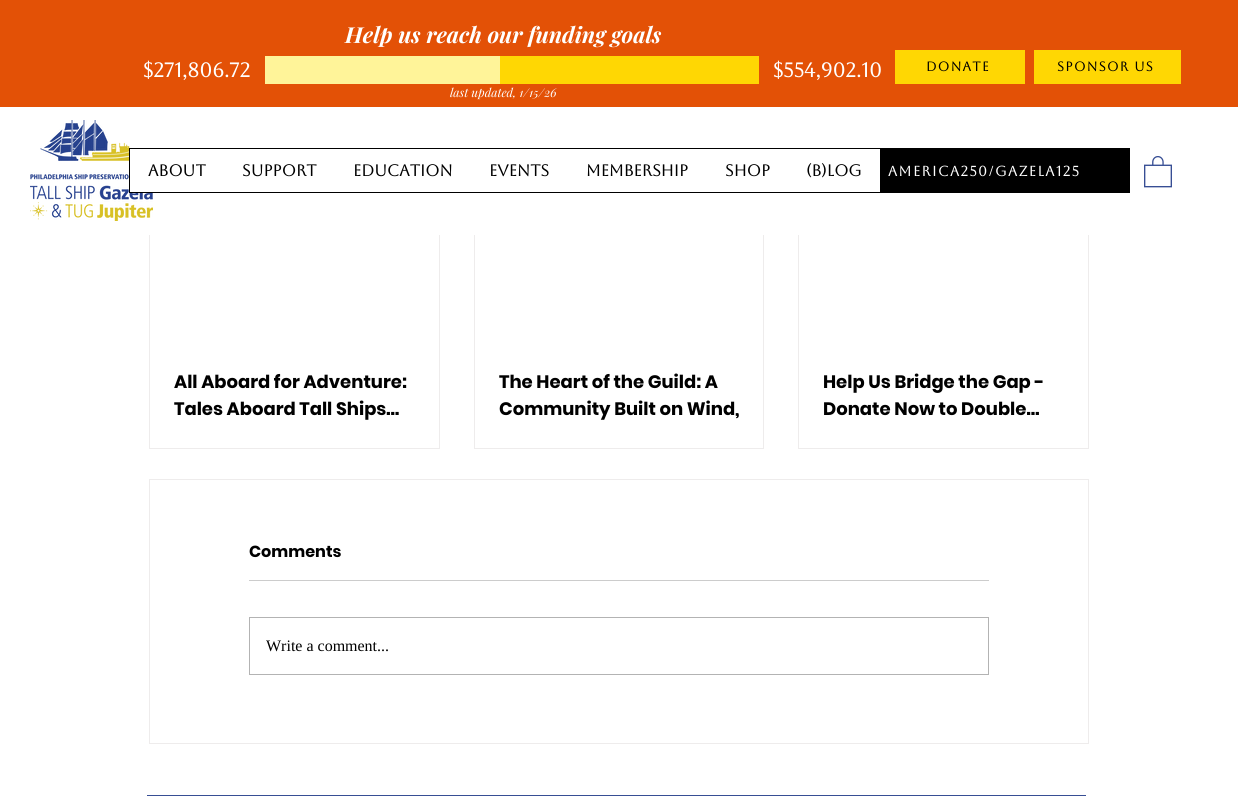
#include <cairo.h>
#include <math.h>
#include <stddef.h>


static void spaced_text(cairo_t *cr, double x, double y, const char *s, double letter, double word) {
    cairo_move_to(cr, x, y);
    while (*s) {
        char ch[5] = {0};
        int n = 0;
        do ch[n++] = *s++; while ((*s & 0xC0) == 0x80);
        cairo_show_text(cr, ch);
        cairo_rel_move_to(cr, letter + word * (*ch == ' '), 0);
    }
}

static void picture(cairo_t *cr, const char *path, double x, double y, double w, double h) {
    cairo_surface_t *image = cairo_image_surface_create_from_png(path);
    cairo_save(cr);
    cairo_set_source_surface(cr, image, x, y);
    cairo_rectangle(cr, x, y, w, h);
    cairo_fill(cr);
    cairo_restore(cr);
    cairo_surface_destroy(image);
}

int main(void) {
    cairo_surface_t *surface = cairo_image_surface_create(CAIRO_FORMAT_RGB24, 1238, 804);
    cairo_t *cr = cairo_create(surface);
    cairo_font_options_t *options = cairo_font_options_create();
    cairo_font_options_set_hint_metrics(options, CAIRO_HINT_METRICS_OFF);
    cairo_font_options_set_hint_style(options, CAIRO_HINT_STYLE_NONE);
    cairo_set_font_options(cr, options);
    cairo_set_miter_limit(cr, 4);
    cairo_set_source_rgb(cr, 1, 1, 1);
    cairo_paint(cr);
    cairo_set_source_rgb(cr, 0.89, 0.318, 0.024);
    cairo_rectangle(cr, 0, 0, 1238, 107);
    cairo_fill(cr);
    cairo_select_font_face(cr, "Playfair Display", CAIRO_FONT_SLANT_ITALIC, CAIRO_FONT_WEIGHT_BOLD);
    cairo_set_font_size(cr, 22);
    cairo_set_source_rgb(cr, 1, 1, 1);
    cairo_move_to(cr, 345, 43);
    cairo_show_text(cr, "Help us reach our funding goals");
    cairo_select_font_face(cr, "Aboreto", CAIRO_FONT_SLANT_NORMAL, CAIRO_FONT_WEIGHT_BOLD);
    cairo_set_font_size(cr, 20);
    cairo_move_to(cr, 143, 77);
    cairo_show_text(cr, "$271,806.72");
    cairo_set_source_rgb(cr, 1, 0.957, 0.6);
    cairo_rectangle(cr, 265, 56, 235, 28);
    cairo_fill(cr);
    cairo_set_source_rgb(cr, 1, 0.843, 0.012);
    cairo_rectangle(cr, 500, 56, 259, 28);
    cairo_fill(cr);
    cairo_set_source_rgb(cr, 1, 1, 1);
    cairo_move_to(cr, 773, 77);
    cairo_show_text(cr, "$554,902.10");
    cairo_set_source_rgb(cr, 1, 0.843, 0.012);
    cairo_rectangle(cr, 895, 50, 130, 34);
    cairo_fill(cr);
    cairo_set_font_size(cr, 13);
    cairo_set_source_rgb(cr, 0, 0, 0);
    spaced_text(cr, 926, 71, "DONATE", 1.25, 0);
    cairo_set_source_rgb(cr, 1, 0.843, 0.012);
    cairo_rectangle(cr, 1034, 50, 147, 34);
    cairo_fill(cr);
    cairo_set_source_rgb(cr, 0, 0, 0);
    spaced_text(cr, 1057, 71, "SPONSOR US", 1.25, 0);
    cairo_select_font_face(cr, "Playfair Display", CAIRO_FONT_SLANT_ITALIC, CAIRO_FONT_WEIGHT_NORMAL);
    cairo_set_font_size(cr, 12);
    cairo_set_source_rgb(cr, 1, 1, 1);
    cairo_move_to(cr, 450, 97);
    cairo_show_text(cr, "last updated, 1/15/26");
    cairo_rectangle(cr, 149.5, 180.5, 290, 268);
    cairo_set_source_rgb(cr, 0.933, 0.925, 0.925);
    cairo_set_line_width(cr, 1);
    cairo_stroke(cr);
    cairo_rectangle(cr, 474.5, 180.5, 289, 268);
    cairo_stroke(cr);
    cairo_rectangle(cr, 798.5, 180.5, 290, 268);
    cairo_stroke(cr);
    cairo_set_source_rgb(cr, 1, 1, 1);
    cairo_rectangle(cr, 149, 180, 940, 55);
    cairo_fill(cr);
    picture(cr, "img1.png", 30, 120, 123, 101);
    cairo_rectangle(cr, 130, 150, 23, 42);
    cairo_fill(cr);
    cairo_rectangle(cr, 129.5, 148.5, 751, 44);
    cairo_set_source_rgb(cr, 0, 0, 0);
    cairo_stroke(cr);
    cairo_select_font_face(cr, "Aboreto", CAIRO_FONT_SLANT_NORMAL, CAIRO_FONT_WEIGHT_BOLD);
    cairo_set_font_size(cr, 16);
    cairo_move_to(cr, 148, 176);
    cairo_show_text(cr, "About");
    cairo_move_to(cr, 242, 176);
    cairo_show_text(cr, "Support");
    cairo_move_to(cr, 353, 176);
    cairo_show_text(cr, "Education");
    cairo_move_to(cr, 489, 176);
    cairo_show_text(cr, "Events");
    cairo_move_to(cr, 586, 176);
    cairo_show_text(cr, "Membership");
    cairo_move_to(cr, 725, 176);
    cairo_show_text(cr, "Shop");
    cairo_move_to(cr, 806, 176);
    cairo_show_text(cr, "(B)LOG");
    cairo_rectangle(cr, 881, 148, 249, 45);
    cairo_fill(cr);
    cairo_set_font_size(cr, 14);
    cairo_set_source_rgb(cr, 1, 1, 1);
    spaced_text(cr, 888, 176, "America250/Gazela125", 1.4, 0);
    picture(cr, "img2.png", 1144, 156, 28, 32);
    cairo_select_font_face(cr, "Poppins", CAIRO_FONT_SLANT_NORMAL, CAIRO_FONT_WEIGHT_BOLD);
    cairo_set_font_size(cr, 18);
    cairo_set_source_rgb(cr, 0, 0, 0);
    cairo_move_to(cr, 174, 388);
    cairo_show_text(cr, "All Aboard for Adventure:");
    cairo_move_to(cr, 174, 415);
    cairo_show_text(cr, "Tales Aboard Tall Ships…");
    cairo_save(cr);
    cairo_rectangle(cr, 499, 368, 240, 54);
    cairo_clip(cr);
    cairo_move_to(cr, 499, 388);
    cairo_show_text(cr, "The Heart of the Guild: A");
    cairo_restore(cr);
    cairo_move_to(cr, 499, 415);
    cairo_show_text(cr, "Community Built on Wind,");
    cairo_move_to(cr, 823, 388);
    cairo_show_text(cr, "Help Us Bridge the Gap -");
    cairo_move_to(cr, 823, 415);
    cairo_show_text(cr, "Donate Now to Double…");
    cairo_rectangle(cr, 149.5, 479.5, 939, 264);
    cairo_set_source_rgb(cr, 0.933, 0.925, 0.925);
    cairo_stroke(cr);
    cairo_set_font_size(cr, 16);
    cairo_set_source_rgb(cr, 0, 0, 0);
    cairo_move_to(cr, 249, 557);
    cairo_show_text(cr, "Comments");
    cairo_set_source_rgb(cr, 0.8, 0.8, 0.8);
    cairo_rectangle(cr, 249, 580, 740, 1);
    cairo_fill(cr);
    cairo_rectangle(cr, 249.5, 617.5, 739, 57);
    cairo_set_source_rgb(cr, 0.702, 0.702, 0.702);
    cairo_stroke(cr);
    cairo_select_font_face(cr, "Liberation Serif", CAIRO_FONT_SLANT_NORMAL, CAIRO_FONT_WEIGHT_NORMAL);
    cairo_set_source_rgb(cr, 0, 0, 0);
    cairo_move_to(cr, 266, 651);
    cairo_show_text(cr, "Write a comment...");
    cairo_set_source_rgb(cr, 0.216, 0.306, 0.58);
    cairo_rectangle(cr, 147, 795, 939, 1);
    cairo_fill(cr);
    cairo_surface_write_to_png(surface, "page.png");
    cairo_font_options_destroy(options);
    cairo_destroy(cr);
    cairo_surface_destroy(surface);
    return 0;
}
